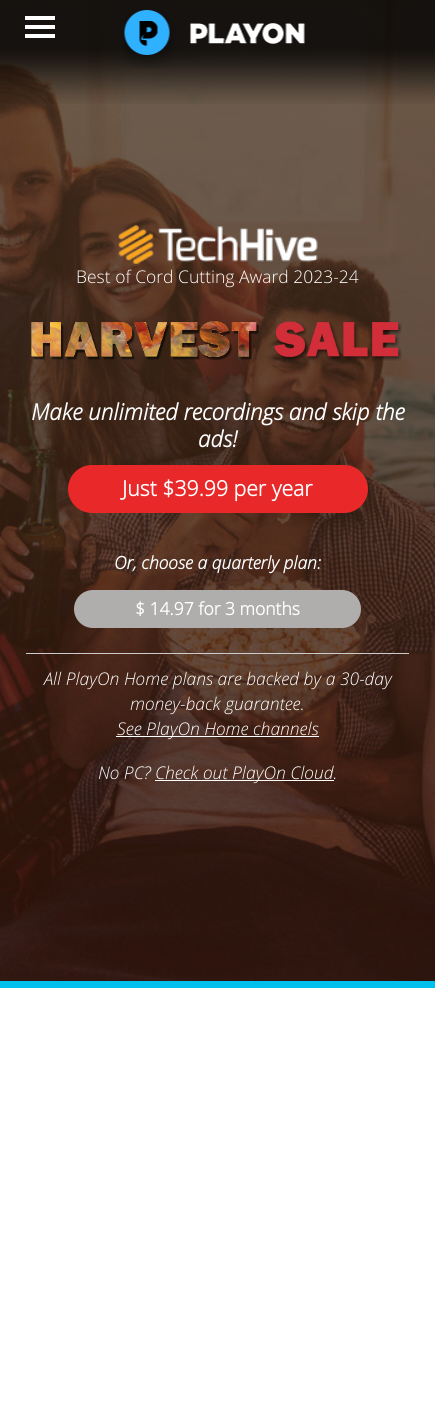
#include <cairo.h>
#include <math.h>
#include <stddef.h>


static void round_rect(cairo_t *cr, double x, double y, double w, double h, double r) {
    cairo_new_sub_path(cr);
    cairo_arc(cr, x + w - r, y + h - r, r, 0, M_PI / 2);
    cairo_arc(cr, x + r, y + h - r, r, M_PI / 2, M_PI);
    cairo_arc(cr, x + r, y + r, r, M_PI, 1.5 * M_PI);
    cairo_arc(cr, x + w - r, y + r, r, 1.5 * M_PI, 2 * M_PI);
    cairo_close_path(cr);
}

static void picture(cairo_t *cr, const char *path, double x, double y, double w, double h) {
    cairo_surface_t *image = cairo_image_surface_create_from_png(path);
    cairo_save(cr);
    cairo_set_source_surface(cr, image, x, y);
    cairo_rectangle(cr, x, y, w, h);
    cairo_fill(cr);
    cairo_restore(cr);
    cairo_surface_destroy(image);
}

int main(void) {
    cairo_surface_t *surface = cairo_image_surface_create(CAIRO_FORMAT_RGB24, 435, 1428);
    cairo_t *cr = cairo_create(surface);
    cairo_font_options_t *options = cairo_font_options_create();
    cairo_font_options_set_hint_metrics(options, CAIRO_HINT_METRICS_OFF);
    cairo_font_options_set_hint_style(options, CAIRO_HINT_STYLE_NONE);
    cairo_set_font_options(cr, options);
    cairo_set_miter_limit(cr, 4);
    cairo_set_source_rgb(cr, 1, 1, 1);
    cairo_paint(cr);
    picture(cr, "img1.png", 0, 0, 435, 981);
    cairo_set_source_rgb(cr, 0, 0.753, 0.933);
    cairo_rectangle(cr, 0, 981, 435, 7);
    cairo_fill(cr);
    picture(cr, "img2.png", 0, 0, 435, 104);
    cairo_set_source_rgb(cr, 1, 1, 1);
    cairo_rectangle(cr, 25, 16, 30, 4);
    cairo_fill(cr);
    cairo_rectangle(cr, 25, 25, 30, 4);
    cairo_fill(cr);
    cairo_rectangle(cr, 25, 34, 30, 4);
    cairo_fill(cr);
    picture(cr, "img3.png", 124, 10, 181, 58);
    picture(cr, "img4.png", 118, 225, 200, 39);
    cairo_select_font_face(cr, "Open Sans Light", CAIRO_FONT_SLANT_NORMAL, CAIRO_FONT_WEIGHT_NORMAL);
    cairo_set_font_size(cr, 17.5);
    cairo_move_to(cr, 76, 283);
    cairo_show_text(cr, "Best of Cord Cutting Award 2023-24");
    picture(cr, "img5.png", 31, 321, 371, 40);
    cairo_select_font_face(cr, "Open Sans", CAIRO_FONT_SLANT_ITALIC, CAIRO_FONT_WEIGHT_BOLD);
    cairo_set_font_size(cr, 22.5);
    cairo_move_to(cr, 31, 420);
    cairo_show_text(cr, "Make unlimited recordings and skip the");
    cairo_move_to(cr, 198, 447);
    cairo_show_text(cr, "ads!");
    cairo_set_source_rgb(cr, 0.914, 0.161, 0.161);
    round_rect(cr, 68, 465, 300, 48, 24);
    cairo_fill(cr);
    cairo_select_font_face(cr, "Open Sans", CAIRO_FONT_SLANT_NORMAL, CAIRO_FONT_WEIGHT_BOLD);
    cairo_set_font_size(cr, 21.25);
    cairo_set_source_rgb(cr, 1, 1, 1);
    cairo_move_to(cr, 122, 496);
    cairo_show_text(cr, "Just $39.99 per year");
    cairo_select_font_face(cr, "Open Sans", CAIRO_FONT_SLANT_ITALIC, CAIRO_FONT_WEIGHT_BOLD);
    cairo_set_font_size(cr, 17.5);
    cairo_move_to(cr, 114, 569);
    cairo_show_text(cr, "Or, choose a quarterly plan:");
    cairo_set_source_rgb(cr, 0.69, 0.678, 0.678);
    round_rect(cr, 74, 590, 287, 38, 19);
    cairo_fill(cr);
    cairo_select_font_face(cr, "Open Sans", CAIRO_FONT_SLANT_NORMAL, CAIRO_FONT_WEIGHT_BOLD);
    cairo_set_source_rgb(cr, 1, 1, 1);
    cairo_move_to(cr, 135, 615);
    cairo_show_text(cr, "$ 14.97 for 3 months");
    cairo_set_source_rgb(cr, 0.8, 0.8, 0.8);
    cairo_rectangle(cr, 26, 653, 383, 1);
    cairo_fill(cr);
    cairo_select_font_face(cr, "Open Sans Light", CAIRO_FONT_SLANT_ITALIC, CAIRO_FONT_WEIGHT_NORMAL);
    cairo_set_source_rgb(cr, 1, 1, 1);
    cairo_move_to(cr, 44, 685);
    cairo_show_text(cr, "All PlayOn Home plans are backed by a 30-day");
    cairo_move_to(cr, 130, 710);
    cairo_show_text(cr, "money-back guarantee.");
    cairo_rectangle(cr, 116, 736, 203, 1);
    cairo_fill(cr);
    cairo_move_to(cr, 117, 735);
    cairo_show_text(cr, "See PlayOn Home channels");
    cairo_move_to(cr, 98, 779);
    cairo_show_text(cr, "No PC?");
    cairo_rectangle(cr, 155, 780, 179, 1);
    cairo_fill(cr);
    cairo_move_to(cr, 155, 779);
    cairo_show_text(cr, "Check out PlayOn Cloud.");
    cairo_surface_write_to_png(surface, "page.png");
    cairo_font_options_destroy(options);
    cairo_destroy(cr);
    cairo_surface_destroy(surface);
    return 0;
}
